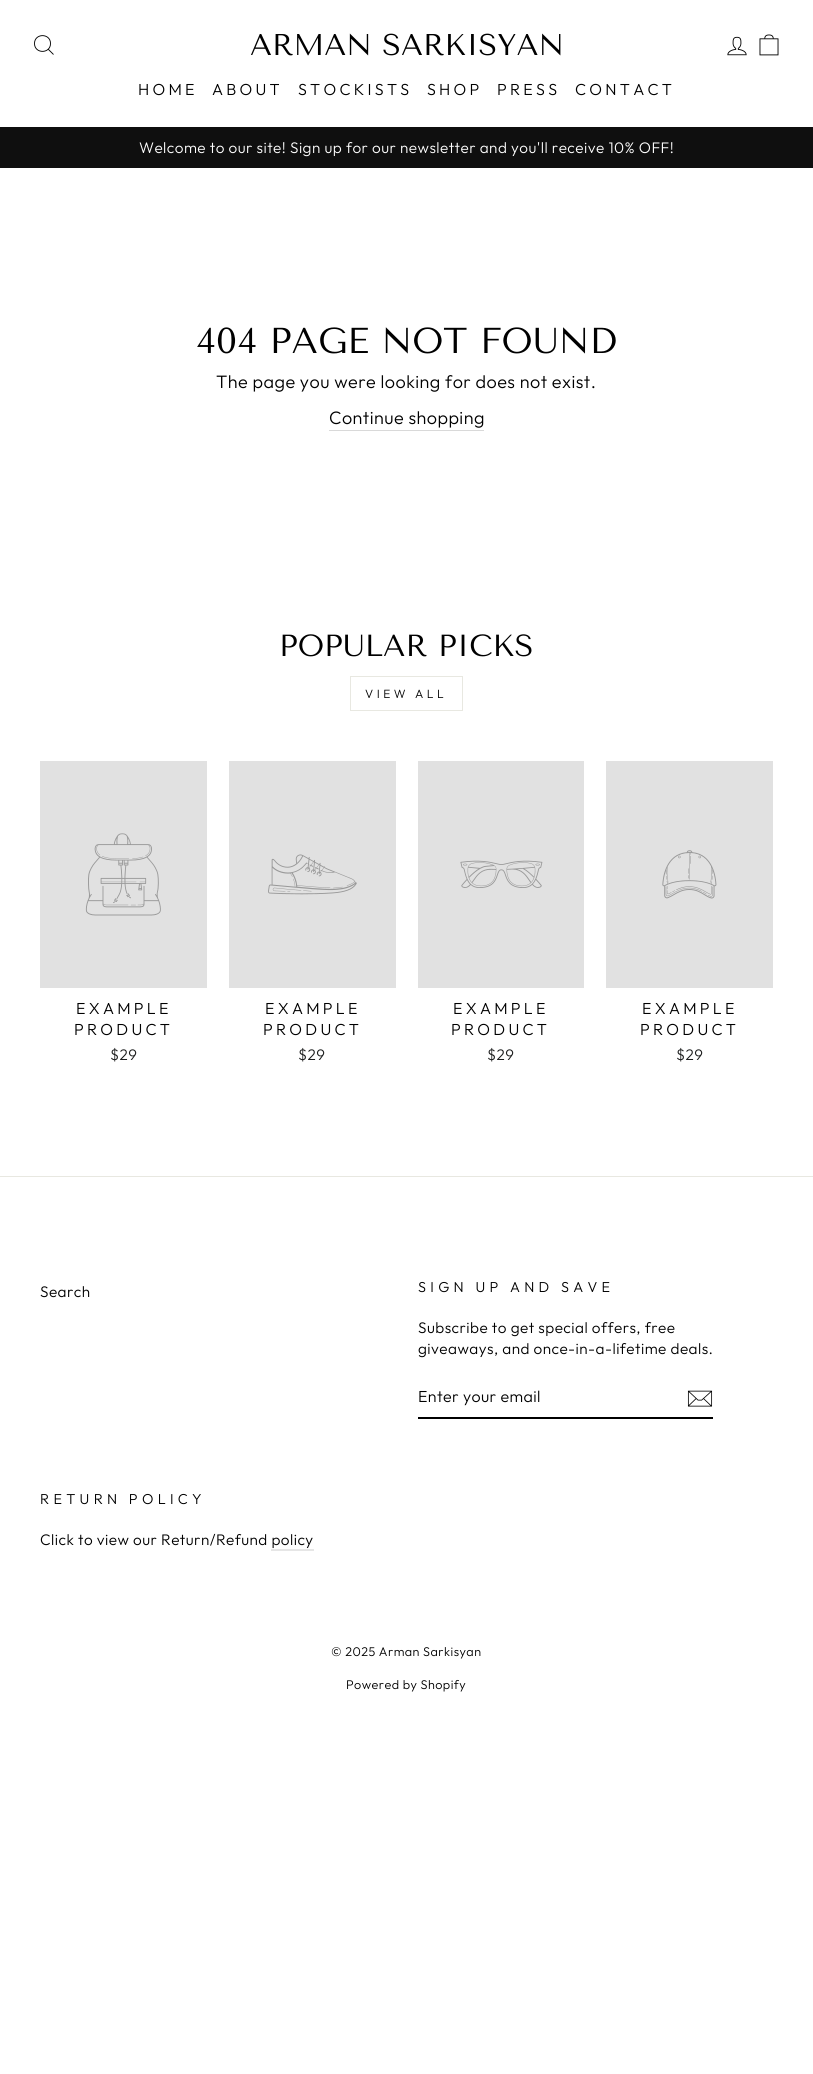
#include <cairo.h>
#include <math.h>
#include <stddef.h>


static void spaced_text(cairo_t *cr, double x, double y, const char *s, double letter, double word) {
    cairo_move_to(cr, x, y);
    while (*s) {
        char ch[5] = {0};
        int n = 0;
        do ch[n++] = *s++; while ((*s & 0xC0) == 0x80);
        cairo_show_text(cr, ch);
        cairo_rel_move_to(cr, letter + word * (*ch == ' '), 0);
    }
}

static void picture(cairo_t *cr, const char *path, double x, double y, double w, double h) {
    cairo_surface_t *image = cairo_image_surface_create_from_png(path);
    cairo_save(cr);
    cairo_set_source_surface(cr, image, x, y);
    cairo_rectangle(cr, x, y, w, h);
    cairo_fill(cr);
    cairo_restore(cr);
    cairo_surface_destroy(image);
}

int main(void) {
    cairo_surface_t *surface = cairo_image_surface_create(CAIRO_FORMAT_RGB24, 813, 2074);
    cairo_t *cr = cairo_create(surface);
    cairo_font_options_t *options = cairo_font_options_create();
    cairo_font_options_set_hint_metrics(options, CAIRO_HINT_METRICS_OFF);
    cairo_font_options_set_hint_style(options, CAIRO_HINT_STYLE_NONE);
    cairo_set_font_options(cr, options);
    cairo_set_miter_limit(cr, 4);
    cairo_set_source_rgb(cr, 1, 1, 1);
    cairo_paint(cr);
    cairo_new_path(cr);
    cairo_move_to(cr, 50.5, 43.5);
    cairo_curve_to(cr, 50.5, 54, 34.5, 54, 34.5, 43.5);
    cairo_curve_to(cr, 34.5, 33, 50.5, 33, 50.5, 43.5);
    cairo_close_path(cr);
    cairo_move_to(cr, 53.5, 54.5);
    cairo_line_to(cr, 48.5, 49.5);
    cairo_set_source_rgb(cr, 0, 0, 0);
    cairo_set_line_width(cr, 0.9);
    cairo_stroke(cr);
    cairo_select_font_face(cr, "Tenor Sans", CAIRO_FONT_SLANT_NORMAL, CAIRO_FONT_WEIGHT_NORMAL);
    cairo_set_font_size(cr, 30);
    cairo_move_to(cr, 250, 55);
    cairo_show_text(cr, "ARMAN SARKISYAN");
    picture(cr, "img1.png", 727, 36, 20, 20);
    picture(cr, "img2.png", 759, 34, 20, 22);
    cairo_select_font_face(cr, "Outfit Light", CAIRO_FONT_SLANT_NORMAL, CAIRO_FONT_WEIGHT_NORMAL);
    cairo_set_font_size(cr, 16);
    spaced_text(cr, 138, 95, "HOME", 3.25, 0);
    spaced_text(cr, 212, 95, "ABOUT", 3.25, 0);
    spaced_text(cr, 298, 95, "STOCKISTS", 3.25, 0);
    spaced_text(cr, 427, 95, "SHOP", 3.25, 0);
    spaced_text(cr, 497, 95, "PRESS", 3.25, 0);
    spaced_text(cr, 575, 95, "CONTACT", 3.25, 0);
    cairo_set_source_rgb(cr, 0.059, 0.059, 0.059);
    cairo_rectangle(cr, 0, 127, 813, 41);
    cairo_fill(cr);
    cairo_set_font_size(cr, 15.3);
    cairo_set_source_rgb(cr, 1, 1, 1);
    spaced_text(cr, 139, 153, "Welcome to our site! Sign up for our newsletter and you'll receive 10% OFF!", 0.45, 0);
    cairo_select_font_face(cr, "Tenor Sans", CAIRO_FONT_SLANT_NORMAL, CAIRO_FONT_WEIGHT_NORMAL);
    cairo_set_font_size(cr, 36);
    cairo_set_source_rgb(cr, 0, 0, 0);
    cairo_move_to(cr, 196, 353);
    cairo_show_text(cr, "404 PAGE NOT FOUND");
    cairo_select_font_face(cr, "Outfit Light", CAIRO_FONT_SLANT_NORMAL, CAIRO_FONT_WEIGHT_NORMAL);
    cairo_set_font_size(cr, 18);
    spaced_text(cr, 216, 388, "The page you were looking for does not exist.", 0.45, 0);
    cairo_set_source_rgb(cr, 0.851, 0.851, 0.851);
    cairo_rectangle(cr, 329, 430, 155, 1);
    cairo_fill(cr);
    cairo_set_source_rgb(cr, 0, 0, 0);
    spaced_text(cr, 329, 424, "Continue shopping", 0.45, 0);
    cairo_select_font_face(cr, "Tenor Sans", CAIRO_FONT_SLANT_NORMAL, CAIRO_FONT_WEIGHT_NORMAL);
    cairo_set_font_size(cr, 30.5);
    cairo_move_to(cr, 279, 656);
    cairo_show_text(cr, "POPULAR PICKS");
    cairo_rectangle(cr, 350.5, 676.5, 112, 34);
    cairo_set_source_rgb(cr, 0.91, 0.91, 0.882);
    cairo_set_line_width(cr, 1);
    cairo_stroke(cr);
    cairo_select_font_face(cr, "Outfit Light", CAIRO_FONT_SLANT_NORMAL, CAIRO_FONT_WEIGHT_NORMAL);
    cairo_set_font_size(cr, 12);
    cairo_set_source_rgb(cr, 0, 0, 0);
    spaced_text(cr, 365, 698, "VIEW ALL", 3.5, 0);
    cairo_set_source_rgb(cr, 0.882, 0.882, 0.882);
    cairo_rectangle(cr, 40, 761, 167, 227);
    cairo_fill(cr);
    picture(cr, "img3.png", 85, 833, 76, 83);
    cairo_set_font_size(cr, 16);
    cairo_set_source_rgb(cr, 0, 0, 0);
    spaced_text(cr, 76, 1014, "EXAMPLE", 3.25, 0);
    spaced_text(cr, 74, 1035, "PRODUCT", 3.25, 0);
    cairo_set_font_size(cr, 15.3);
    cairo_set_source_rgb(cr, 0.11, 0.114, 0.114);
    spaced_text(cr, 110, 1060, "$29", 0.45, 0);
    cairo_set_source_rgb(cr, 0.882, 0.882, 0.882);
    cairo_rectangle(cr, 229, 761, 167, 227);
    cairo_fill(cr);
    picture(cr, "img4.png", 268, 854, 89, 41);
    cairo_set_font_size(cr, 16);
    cairo_set_source_rgb(cr, 0, 0, 0);
    spaced_text(cr, 265, 1014, "EXAMPLE", 3.25, 0);
    spaced_text(cr, 263, 1035, "PRODUCT", 3.25, 0);
    cairo_set_font_size(cr, 15.3);
    cairo_set_source_rgb(cr, 0.11, 0.114, 0.114);
    spaced_text(cr, 298, 1060, "$29", 0.45, 0);
    cairo_set_source_rgb(cr, 0.882, 0.882, 0.882);
    cairo_rectangle(cr, 418, 761, 166, 227);
    cairo_fill(cr);
    picture(cr, "img5.png", 460, 860, 83, 28);
    cairo_set_font_size(cr, 16);
    cairo_set_source_rgb(cr, 0, 0, 0);
    spaced_text(cr, 453, 1014, "EXAMPLE", 3.25, 0);
    spaced_text(cr, 451, 1035, "PRODUCT", 3.25, 0);
    cairo_set_font_size(cr, 15.3);
    cairo_set_source_rgb(cr, 0.11, 0.114, 0.114);
    spaced_text(cr, 487, 1060, "$29", 0.45, 0);
    cairo_set_source_rgb(cr, 0.882, 0.882, 0.882);
    cairo_rectangle(cr, 606, 761, 167, 227);
    cairo_fill(cr);
    picture(cr, "img6.png", 662, 850, 55, 49);
    cairo_set_font_size(cr, 16);
    cairo_set_source_rgb(cr, 0, 0, 0);
    spaced_text(cr, 642, 1014, "EXAMPLE", 3.25, 0);
    spaced_text(cr, 640, 1035, "PRODUCT", 3.25, 0);
    cairo_set_font_size(cr, 15.3);
    cairo_set_source_rgb(cr, 0.11, 0.114, 0.114);
    spaced_text(cr, 676, 1060, "$29", 0.45, 0);
    cairo_set_source_rgb(cr, 0.91, 0.91, 0.882);
    cairo_rectangle(cr, 0, 1176, 813, 1);
    cairo_fill(cr);
    cairo_set_source_rgb(cr, 0, 0, 0);
    spaced_text(cr, 40, 1297, "Search", 0.45, 0);
    cairo_set_font_size(cr, 14.4);
    spaced_text(cr, 418, 1292, "SIGN UP AND SAVE", 4.3, 0);
    cairo_set_font_size(cr, 15.3);
    spaced_text(cr, 418, 1333, "Subscribe to get special offers, free", 0.45, 0);
    spaced_text(cr, 418, 1354, "giveaways, and once-in-a-lifetime deals.", 0.45, 0);
    cairo_rectangle(cr, 418, 1417, 295, 2);
    cairo_fill(cr);
    cairo_set_font_size(cr, 16);
    spaced_text(cr, 418, 1402, "Enter your email", 0.4, 0);
    picture(cr, "img7.png", 687, 1390, 26, 17);
    cairo_set_font_size(cr, 14.4);
    spaced_text(cr, 40, 1504, "RETURN POLICY", 4.3, 0);
    cairo_set_font_size(cr, 15.3);
    spaced_text(cr, 40, 1545, "Click to view our Return/Refund policy", 0.45, 0);
    cairo_set_source_rgb(cr, 0.902, 0.902, 0.902);
    cairo_rectangle(cr, 271, 1549, 43, 2);
    cairo_fill(cr);
    cairo_set_font_size(cr, 12.6);
    cairo_set_source_rgb(cr, 0, 0, 0);
    spaced_text(cr, 331, 1656, "© 2025 Arman Sarkisyan", 0.45, 0);
    spaced_text(cr, 346, 1689, "Powered by Shopify", 0.45, 0);
    cairo_surface_write_to_png(surface, "page.png");
    cairo_font_options_destroy(options);
    cairo_destroy(cr);
    cairo_surface_destroy(surface);
    return 0;
}
